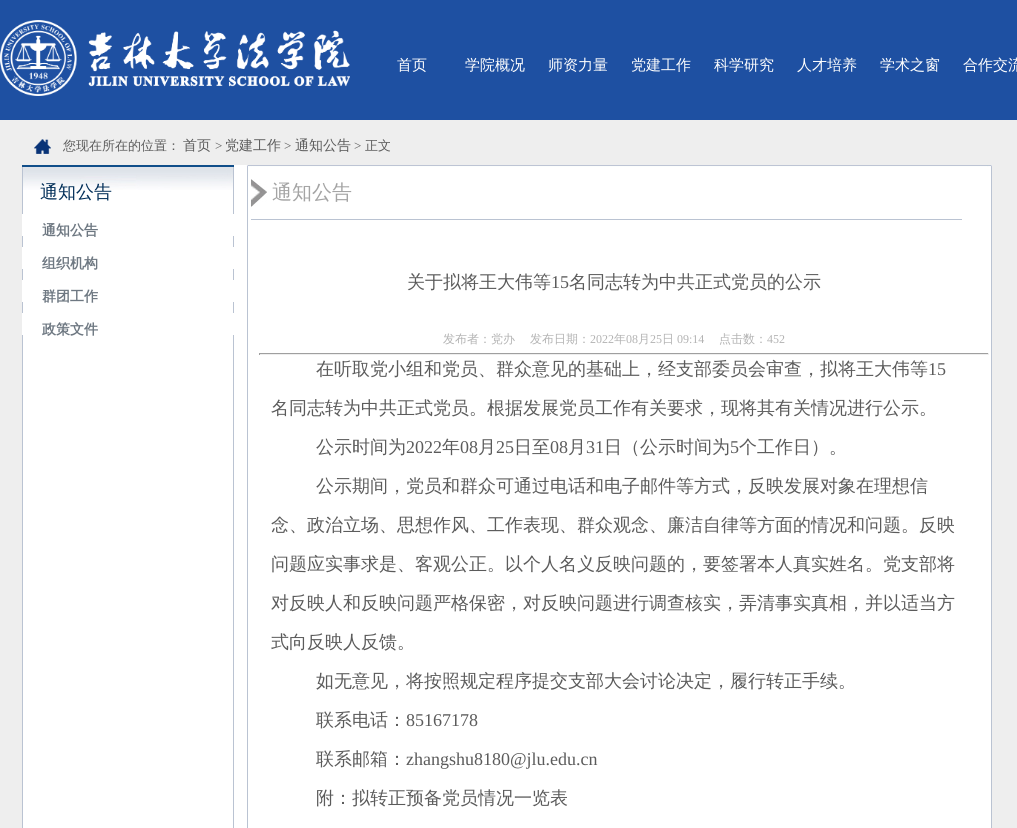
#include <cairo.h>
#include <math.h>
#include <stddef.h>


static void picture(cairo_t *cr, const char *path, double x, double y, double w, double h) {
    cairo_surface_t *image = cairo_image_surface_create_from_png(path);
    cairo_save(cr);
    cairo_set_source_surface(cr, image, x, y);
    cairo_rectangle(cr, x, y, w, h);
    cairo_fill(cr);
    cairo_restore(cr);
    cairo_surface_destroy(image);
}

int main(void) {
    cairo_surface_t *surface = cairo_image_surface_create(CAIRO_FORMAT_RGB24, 1017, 828);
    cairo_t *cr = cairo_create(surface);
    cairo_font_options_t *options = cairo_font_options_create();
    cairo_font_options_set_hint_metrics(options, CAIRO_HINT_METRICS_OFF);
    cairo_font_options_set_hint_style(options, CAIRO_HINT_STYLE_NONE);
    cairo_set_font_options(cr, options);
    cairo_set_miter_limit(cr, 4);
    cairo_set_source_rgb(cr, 0.118, 0.314, 0.635);
    cairo_paint(cr);
    picture(cr, "img1.png", 0, 20, 350, 76);
    cairo_select_font_face(cr, "WenQuanYi Zen Hei Medium", CAIRO_FONT_SLANT_NORMAL, CAIRO_FONT_WEIGHT_NORMAL);
    cairo_set_font_size(cr, 15);
    cairo_set_source_rgb(cr, 1, 1, 1);
    cairo_move_to(cr, 397, 70);
    cairo_show_text(cr, "首页");
    cairo_move_to(cr, 465, 70);
    cairo_show_text(cr, "学院概况");
    cairo_move_to(cr, 548, 70);
    cairo_show_text(cr, "师资力量");
    cairo_move_to(cr, 631, 70);
    cairo_show_text(cr, "党建工作");
    cairo_move_to(cr, 714, 70);
    cairo_show_text(cr, "科学研究");
    cairo_move_to(cr, 797, 70);
    cairo_show_text(cr, "人才培养");
    cairo_move_to(cr, 880, 70);
    cairo_show_text(cr, "学术之窗");
    cairo_move_to(cr, 963, 70);
    cairo_show_text(cr, "合作交流");
    cairo_set_source_rgb(cr, 0.933, 0.933, 0.933);
    cairo_rectangle(cr, 0, 120, 1017, 708);
    cairo_fill(cr);
    picture(cr, "img2.png", 34, 139, 17, 15);
    cairo_set_font_size(cr, 13);
    cairo_set_source_rgb(cr, 0.357, 0.357, 0.357);
    cairo_move_to(cr, 63, 150);
    cairo_show_text(cr, "您现在所在的位置：");
    cairo_set_font_size(cr, 14);
    cairo_move_to(cr, 183, 150);
    cairo_show_text(cr, "首页");
    cairo_select_font_face(cr, "Liberation Serif", CAIRO_FONT_SLANT_NORMAL, CAIRO_FONT_WEIGHT_NORMAL);
    cairo_set_font_size(cr, 13);
    cairo_move_to(cr, 215, 150);
    cairo_show_text(cr, ">");
    cairo_select_font_face(cr, "WenQuanYi Zen Hei Medium", CAIRO_FONT_SLANT_NORMAL, CAIRO_FONT_WEIGHT_NORMAL);
    cairo_set_font_size(cr, 14);
    cairo_move_to(cr, 225, 150);
    cairo_show_text(cr, "党建工作");
    cairo_select_font_face(cr, "Liberation Serif", CAIRO_FONT_SLANT_NORMAL, CAIRO_FONT_WEIGHT_NORMAL);
    cairo_set_font_size(cr, 13);
    cairo_move_to(cr, 284, 150);
    cairo_show_text(cr, ">");
    cairo_select_font_face(cr, "WenQuanYi Zen Hei Medium", CAIRO_FONT_SLANT_NORMAL, CAIRO_FONT_WEIGHT_NORMAL);
    cairo_set_font_size(cr, 14);
    cairo_move_to(cr, 295, 150);
    cairo_show_text(cr, "通知公告");
    cairo_select_font_face(cr, "Liberation Serif", CAIRO_FONT_SLANT_NORMAL, CAIRO_FONT_WEIGHT_NORMAL);
    cairo_set_font_size(cr, 13);
    cairo_move_to(cr, 354, 150);
    cairo_show_text(cr, ">");
    cairo_select_font_face(cr, "WenQuanYi Zen Hei Medium", CAIRO_FONT_SLANT_NORMAL, CAIRO_FONT_WEIGHT_NORMAL);
    cairo_move_to(cr, 365, 150);
    cairo_show_text(cr, "正文");
    picture(cr, "img3.png", 22, 167, 970, 661);
    picture(cr, "img4.png", 22, 165, 970, 2);
    picture(cr, "img5.png", 23, 167, 210, 23);
    cairo_set_font_size(cr, 18);
    cairo_set_source_rgb(cr, 0.004, 0.18, 0.345);
    cairo_move_to(cr, 40, 198);
    cairo_show_text(cr, "通知公告");
    cairo_set_source_rgb(cr, 1, 1, 1);
    cairo_rectangle(cr, 22, 214, 212, 22);
    cairo_fill(cr);
    cairo_select_font_face(cr, "WenQuanYi Zen Hei", CAIRO_FONT_SLANT_NORMAL, CAIRO_FONT_WEIGHT_BOLD);
    cairo_set_font_size(cr, 14);
    cairo_set_source_rgb(cr, 0.431, 0.471, 0.51);
    cairo_move_to(cr, 42, 235);
    cairo_show_text(cr, "通知公告");
    cairo_set_source_rgb(cr, 1, 1, 1);
    cairo_rectangle(cr, 22, 247, 212, 22);
    cairo_fill(cr);
    cairo_set_source_rgb(cr, 0.431, 0.471, 0.51);
    cairo_move_to(cr, 42, 268);
    cairo_show_text(cr, "组织机构");
    cairo_set_source_rgb(cr, 1, 1, 1);
    cairo_rectangle(cr, 22, 280, 212, 22);
    cairo_fill(cr);
    cairo_set_source_rgb(cr, 0.431, 0.471, 0.51);
    cairo_move_to(cr, 42, 301);
    cairo_show_text(cr, "群团工作");
    cairo_set_source_rgb(cr, 1, 1, 1);
    cairo_rectangle(cr, 22, 313, 212, 22);
    cairo_fill(cr);
    cairo_set_source_rgb(cr, 0.431, 0.471, 0.51);
    cairo_move_to(cr, 42, 334);
    cairo_show_text(cr, "政策文件");
    cairo_set_source_rgb(cr, 0.729, 0.765, 0.824);
    cairo_rectangle(cr, 251, 219, 711, 1);
    cairo_fill(cr);
    picture(cr, "img6.png", 251, 179, 16, 28);
    cairo_select_font_face(cr, "WenQuanYi Zen Hei Medium", CAIRO_FONT_SLANT_NORMAL, CAIRO_FONT_WEIGHT_NORMAL);
    cairo_set_font_size(cr, 20);
    cairo_set_source_rgb(cr, 0.643, 0.643, 0.643);
    cairo_move_to(cr, 272, 199);
    cairo_show_text(cr, "通知公告");
    cairo_set_font_size(cr, 18);
    cairo_set_source_rgb(cr, 0.357, 0.357, 0.357);
    cairo_move_to(cr, 407, 288);
    cairo_show_text(cr, "关于拟将王大伟等");
    cairo_select_font_face(cr, "Liberation Serif", CAIRO_FONT_SLANT_NORMAL, CAIRO_FONT_WEIGHT_NORMAL);
    cairo_move_to(cr, 551, 288);
    cairo_show_text(cr, "15");
    cairo_select_font_face(cr, "WenQuanYi Zen Hei Medium", CAIRO_FONT_SLANT_NORMAL, CAIRO_FONT_WEIGHT_NORMAL);
    cairo_move_to(cr, 569, 288);
    cairo_show_text(cr, "名同志转为中共正式党员的公示");
    cairo_set_font_size(cr, 12);
    cairo_set_source_rgb(cr, 0.702, 0.702, 0.702);
    cairo_move_to(cr, 443, 343);
    cairo_show_text(cr, "发布者：党办");
    cairo_move_to(cr, 530, 343);
    cairo_show_text(cr, "发布日期：");
    cairo_select_font_face(cr, "Liberation Serif", CAIRO_FONT_SLANT_NORMAL, CAIRO_FONT_WEIGHT_NORMAL);
    cairo_move_to(cr, 590, 343);
    cairo_show_text(cr, "2022");
    cairo_select_font_face(cr, "WenQuanYi Zen Hei Medium", CAIRO_FONT_SLANT_NORMAL, CAIRO_FONT_WEIGHT_NORMAL);
    cairo_move_to(cr, 614, 343);
    cairo_show_text(cr, "年");
    cairo_select_font_face(cr, "Liberation Serif", CAIRO_FONT_SLANT_NORMAL, CAIRO_FONT_WEIGHT_NORMAL);
    cairo_move_to(cr, 626, 343);
    cairo_show_text(cr, "08");
    cairo_select_font_face(cr, "WenQuanYi Zen Hei Medium", CAIRO_FONT_SLANT_NORMAL, CAIRO_FONT_WEIGHT_NORMAL);
    cairo_move_to(cr, 638, 343);
    cairo_show_text(cr, "月");
    cairo_select_font_face(cr, "Liberation Serif", CAIRO_FONT_SLANT_NORMAL, CAIRO_FONT_WEIGHT_NORMAL);
    cairo_move_to(cr, 650, 343);
    cairo_show_text(cr, "25");
    cairo_select_font_face(cr, "WenQuanYi Zen Hei Medium", CAIRO_FONT_SLANT_NORMAL, CAIRO_FONT_WEIGHT_NORMAL);
    cairo_move_to(cr, 662, 343);
    cairo_show_text(cr, "日");
    cairo_select_font_face(cr, "Liberation Serif", CAIRO_FONT_SLANT_NORMAL, CAIRO_FONT_WEIGHT_NORMAL);
    cairo_move_to(cr, 677, 343);
    cairo_show_text(cr, "09:14");
    cairo_select_font_face(cr, "WenQuanYi Zen Hei Medium", CAIRO_FONT_SLANT_NORMAL, CAIRO_FONT_WEIGHT_NORMAL);
    cairo_move_to(cr, 719, 343);
    cairo_show_text(cr, "点击数：");
    cairo_select_font_face(cr, "Liberation Serif", CAIRO_FONT_SLANT_NORMAL, CAIRO_FONT_WEIGHT_NORMAL);
    cairo_move_to(cr, 767, 343);
    cairo_show_text(cr, "452");
    cairo_set_source_rgb(cr, 0.624, 0.624, 0.624);
    cairo_rectangle(cr, 259, 353, 730, 1);
    cairo_fill(cr);
    cairo_set_source_rgb(cr, 0.933, 0.933, 0.933);
    cairo_rectangle(cr, 988, 353, 1, 2);
    cairo_fill(cr);
    cairo_rectangle(cr, 259, 354, 730, 1);
    cairo_fill(cr);
    cairo_set_source_rgb(cr, 0.624, 0.624, 0.624);
    cairo_rectangle(cr, 259, 353, 1, 2);
    cairo_fill(cr);
    cairo_select_font_face(cr, "WenQuanYi Zen Hei Medium", CAIRO_FONT_SLANT_NORMAL, CAIRO_FONT_WEIGHT_NORMAL);
    cairo_set_font_size(cr, 18);
    cairo_set_source_rgb(cr, 0.357, 0.357, 0.357);
    cairo_move_to(cr, 316, 375);
    cairo_show_text(cr, "在听取党小组和党员、群众意见的基础上，经支部委员会审查，拟将王大伟等");
    cairo_select_font_face(cr, "Liberation Serif", CAIRO_FONT_SLANT_NORMAL, CAIRO_FONT_WEIGHT_NORMAL);
    cairo_move_to(cr, 928, 375);
    cairo_show_text(cr, "15");
    cairo_select_font_face(cr, "WenQuanYi Zen Hei Medium", CAIRO_FONT_SLANT_NORMAL, CAIRO_FONT_WEIGHT_NORMAL);
    cairo_move_to(cr, 271, 414);
    cairo_show_text(cr, "名同志转为中共正式党员。根据发展党员工作有关要求，现将其有关情况进行公示。");
    cairo_move_to(cr, 316, 453);
    cairo_show_text(cr, "公示时间为");
    cairo_select_font_face(cr, "Liberation Serif", CAIRO_FONT_SLANT_NORMAL, CAIRO_FONT_WEIGHT_NORMAL);
    cairo_move_to(cr, 406, 453);
    cairo_show_text(cr, "2022");
    cairo_select_font_face(cr, "WenQuanYi Zen Hei Medium", CAIRO_FONT_SLANT_NORMAL, CAIRO_FONT_WEIGHT_NORMAL);
    cairo_move_to(cr, 442, 453);
    cairo_show_text(cr, "年");
    cairo_select_font_face(cr, "Liberation Serif", CAIRO_FONT_SLANT_NORMAL, CAIRO_FONT_WEIGHT_NORMAL);
    cairo_move_to(cr, 460, 453);
    cairo_show_text(cr, "08");
    cairo_select_font_face(cr, "WenQuanYi Zen Hei Medium", CAIRO_FONT_SLANT_NORMAL, CAIRO_FONT_WEIGHT_NORMAL);
    cairo_move_to(cr, 478, 453);
    cairo_show_text(cr, "月");
    cairo_select_font_face(cr, "Liberation Serif", CAIRO_FONT_SLANT_NORMAL, CAIRO_FONT_WEIGHT_NORMAL);
    cairo_move_to(cr, 496, 453);
    cairo_show_text(cr, "25");
    cairo_select_font_face(cr, "WenQuanYi Zen Hei Medium", CAIRO_FONT_SLANT_NORMAL, CAIRO_FONT_WEIGHT_NORMAL);
    cairo_move_to(cr, 514, 453);
    cairo_show_text(cr, "日至");
    cairo_select_font_face(cr, "Liberation Serif", CAIRO_FONT_SLANT_NORMAL, CAIRO_FONT_WEIGHT_NORMAL);
    cairo_move_to(cr, 550, 453);
    cairo_show_text(cr, "08");
    cairo_select_font_face(cr, "WenQuanYi Zen Hei Medium", CAIRO_FONT_SLANT_NORMAL, CAIRO_FONT_WEIGHT_NORMAL);
    cairo_move_to(cr, 568, 453);
    cairo_show_text(cr, "月");
    cairo_select_font_face(cr, "Liberation Serif", CAIRO_FONT_SLANT_NORMAL, CAIRO_FONT_WEIGHT_NORMAL);
    cairo_move_to(cr, 586, 453);
    cairo_show_text(cr, "31");
    cairo_select_font_face(cr, "WenQuanYi Zen Hei Medium", CAIRO_FONT_SLANT_NORMAL, CAIRO_FONT_WEIGHT_NORMAL);
    cairo_move_to(cr, 604, 453);
    cairo_show_text(cr, "日（公示时间为");
    cairo_select_font_face(cr, "Liberation Serif", CAIRO_FONT_SLANT_NORMAL, CAIRO_FONT_WEIGHT_NORMAL);
    cairo_move_to(cr, 730, 453);
    cairo_show_text(cr, "5");
    cairo_select_font_face(cr, "WenQuanYi Zen Hei Medium", CAIRO_FONT_SLANT_NORMAL, CAIRO_FONT_WEIGHT_NORMAL);
    cairo_move_to(cr, 739, 453);
    cairo_show_text(cr, "个工作日）。");
    cairo_move_to(cr, 316, 492);
    cairo_show_text(cr, "公示期间，党员和群众可通过电话和电子邮件等方式，反映发展对象在理想信");
    cairo_move_to(cr, 271, 531);
    cairo_show_text(cr, "念、政治立场、思想作风、工作表现、群众观念、廉洁自律等方面的情况和问题。反映");
    cairo_move_to(cr, 271, 570);
    cairo_show_text(cr, "问题应实事求是、客观公正。以个人名义反映问题的，要签署本人真实姓名。党支部将");
    cairo_move_to(cr, 271, 609);
    cairo_show_text(cr, "对反映人和反映问题严格保密，对反映问题进行调查核实，弄清事实真相，并以适当方");
    cairo_move_to(cr, 271, 648);
    cairo_show_text(cr, "式向反映人反馈。");
    cairo_move_to(cr, 316, 687);
    cairo_show_text(cr, "如无意见，将按照规定程序提交支部大会讨论决定，履行转正手续。");
    cairo_move_to(cr, 316, 726);
    cairo_show_text(cr, "联系电话：");
    cairo_select_font_face(cr, "Liberation Serif", CAIRO_FONT_SLANT_NORMAL, CAIRO_FONT_WEIGHT_NORMAL);
    cairo_move_to(cr, 406, 726);
    cairo_show_text(cr, "85167178");
    cairo_select_font_face(cr, "WenQuanYi Zen Hei Medium", CAIRO_FONT_SLANT_NORMAL, CAIRO_FONT_WEIGHT_NORMAL);
    cairo_move_to(cr, 316, 765);
    cairo_show_text(cr, "联系邮箱：");
    cairo_select_font_face(cr, "Liberation Serif", CAIRO_FONT_SLANT_NORMAL, CAIRO_FONT_WEIGHT_NORMAL);
    cairo_move_to(cr, 406, 765);
    cairo_show_text(cr, "zhangshu8180@jlu.edu.cn");
    cairo_select_font_face(cr, "WenQuanYi Zen Hei Medium", CAIRO_FONT_SLANT_NORMAL, CAIRO_FONT_WEIGHT_NORMAL);
    cairo_move_to(cr, 316, 804);
    cairo_show_text(cr, "附：拟转正预备党员情况一览表");
    cairo_surface_write_to_png(surface, "page.png");
    cairo_font_options_destroy(options);
    cairo_destroy(cr);
    cairo_surface_destroy(surface);
    return 0;
}
